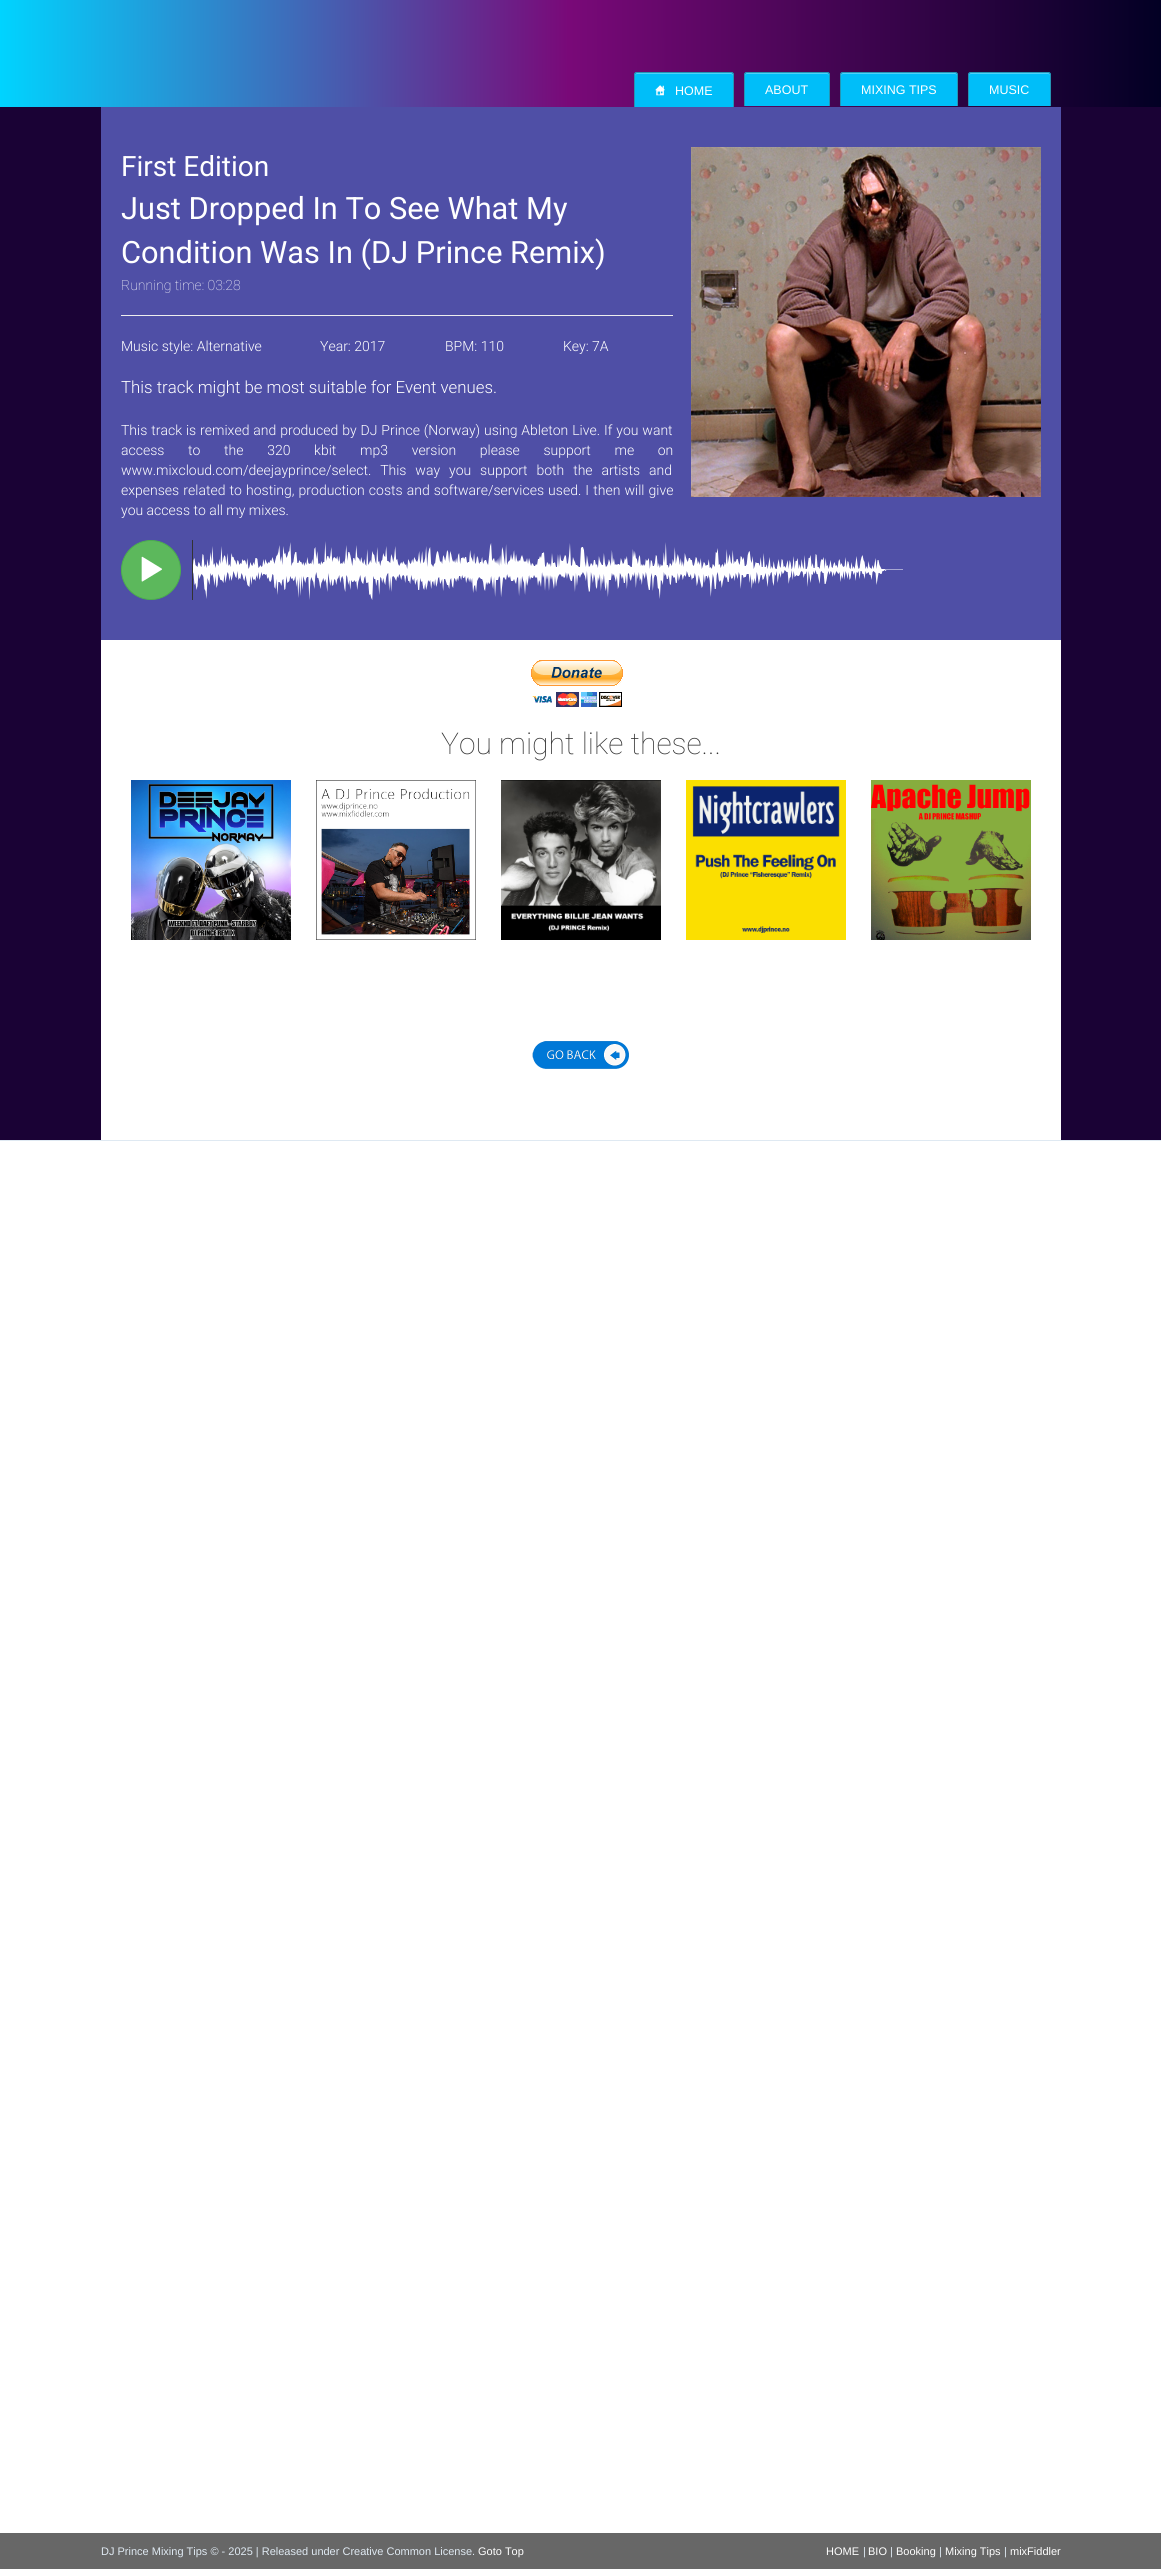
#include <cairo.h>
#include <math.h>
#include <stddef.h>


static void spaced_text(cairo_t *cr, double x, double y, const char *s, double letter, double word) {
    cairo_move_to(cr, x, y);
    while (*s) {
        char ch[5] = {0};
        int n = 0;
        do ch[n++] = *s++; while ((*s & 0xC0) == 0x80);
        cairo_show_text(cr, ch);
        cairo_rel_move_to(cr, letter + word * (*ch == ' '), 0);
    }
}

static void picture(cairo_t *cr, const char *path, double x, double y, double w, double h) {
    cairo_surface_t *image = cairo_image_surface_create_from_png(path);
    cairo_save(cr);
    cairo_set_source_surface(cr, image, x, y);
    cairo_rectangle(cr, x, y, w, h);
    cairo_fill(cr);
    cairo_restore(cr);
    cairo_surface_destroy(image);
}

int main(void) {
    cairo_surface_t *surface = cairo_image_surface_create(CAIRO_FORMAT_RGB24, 1161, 2569);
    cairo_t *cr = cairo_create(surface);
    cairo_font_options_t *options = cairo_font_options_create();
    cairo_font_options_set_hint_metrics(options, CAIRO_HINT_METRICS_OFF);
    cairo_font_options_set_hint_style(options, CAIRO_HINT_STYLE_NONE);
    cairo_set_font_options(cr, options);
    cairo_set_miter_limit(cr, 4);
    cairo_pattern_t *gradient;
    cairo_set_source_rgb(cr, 1, 1, 1);
    cairo_paint(cr);
    gradient = cairo_pattern_create_linear(0, 54, 1161, 53);
    cairo_pattern_add_color_stop_rgba(gradient, 0, 0, 0.831, 1, 1);
    cairo_pattern_add_color_stop_rgba(gradient, 0.49, 0.475, 0.035, 0.471, 1);
    cairo_pattern_add_color_stop_rgba(gradient, 1, 0.008, 0, 0.141, 1);
    cairo_set_source(cr, gradient);
    cairo_pattern_destroy(gradient);
    cairo_rectangle(cr, 0, 0, 1161, 107);
    cairo_fill(cr);
    cairo_set_source_rgb(cr, 0, 0.745, 0.973);
    cairo_new_path(cr);
    cairo_move_to(cr, 637, 72);
    cairo_line_to(cr, 731, 72);
    cairo_curve_to(cr, 732.5, 72, 734, 73.5, 734, 75);
    cairo_line_to(cr, 734, 107);
    cairo_line_to(cr, 634, 107);
    cairo_line_to(cr, 634, 75);
    cairo_curve_to(cr, 634, 73.5, 635.5, 72, 637, 72);
    cairo_close_path(cr);
    cairo_fill(cr);
    cairo_save(cr);
    cairo_rectangle(cr, 624, 72, 427, 35);
    cairo_clip(cr);
    cairo_set_source_rgb(cr, 0.302, 0.824, 0.98);
    cairo_new_path(cr);
    cairo_move_to(cr, 637, 74);
    cairo_line_to(cr, 731, 74);
    cairo_curve_to(cr, 732, 74, 733, 75, 733, 76);
    cairo_curve_to(cr, 733, 75, 733, 73, 731, 73);
    cairo_line_to(cr, 653, 73);
    cairo_curve_to(cr, 651, 73, 635, 69, 635, 76);
    cairo_curve_to(cr, 635, 75, 636, 74, 637, 74);
    cairo_close_path(cr);
    cairo_fill(cr);
    cairo_restore(cr);
    cairo_set_source_rgb(cr, 0.141, 0.584, 0.706);
    cairo_set_fill_rule(cr, CAIRO_FILL_RULE_EVEN_ODD);
    cairo_new_path(cr);
    cairo_move_to(cr, 637, 72);
    cairo_line_to(cr, 731, 72);
    cairo_curve_to(cr, 733, 72, 734, 73, 734, 75);
    cairo_line_to(cr, 734, 107);
    cairo_line_to(cr, 634, 107);
    cairo_line_to(cr, 634, 75);
    cairo_curve_to(cr, 634, 73, 635, 72, 637, 72);
    cairo_close_path(cr);
    cairo_move_to(cr, 637, 73);
    cairo_line_to(cr, 731, 73);
    cairo_curve_to(cr, 732, 73, 733, 74, 733, 75);
    cairo_line_to(cr, 733, 107);
    cairo_line_to(cr, 635, 107);
    cairo_line_to(cr, 635, 75);
    cairo_curve_to(cr, 635, 74, 636, 73, 637, 73);
    cairo_close_path(cr);
    cairo_fill(cr);
    picture(cr, "img1.png", 655, 85, 10, 11);
    cairo_select_font_face(cr, "Liberation Sans", CAIRO_FONT_SLANT_NORMAL, CAIRO_FONT_WEIGHT_NORMAL);
    cairo_set_font_size(cr, 12.5);
    cairo_set_source_rgb(cr, 1, 1, 1);
    cairo_move_to(cr, 675, 95);
    cairo_show_text(cr, "HOME");
    cairo_set_source_rgb(cr, 0, 0.745, 0.973);
    cairo_new_path(cr);
    cairo_move_to(cr, 747, 72);
    cairo_line_to(cr, 827, 72);
    cairo_curve_to(cr, 828.5, 72, 830, 73.5, 830, 75);
    cairo_line_to(cr, 830, 106);
    cairo_line_to(cr, 744, 106);
    cairo_line_to(cr, 744, 75);
    cairo_curve_to(cr, 744, 73.5, 745.5, 72, 747, 72);
    cairo_close_path(cr);
    cairo_fill(cr);
    cairo_save(cr);
    cairo_set_fill_rule(cr, CAIRO_FILL_RULE_WINDING);
    cairo_rectangle(cr, 624, 72, 427, 35);
    cairo_clip(cr);
    cairo_set_source_rgb(cr, 0.302, 0.824, 0.98);
    cairo_new_path(cr);
    cairo_move_to(cr, 747, 74);
    cairo_line_to(cr, 827, 74);
    cairo_curve_to(cr, 828, 74, 829, 75, 829, 76);
    cairo_curve_to(cr, 829, 69, 816, 73, 814, 73);
    cairo_line_to(cr, 760, 73);
    cairo_curve_to(cr, 758, 73, 745, 69, 745, 76);
    cairo_curve_to(cr, 745, 75, 746, 74, 747, 74);
    cairo_close_path(cr);
    cairo_fill(cr);
    cairo_restore(cr);
    cairo_set_source_rgb(cr, 0.141, 0.584, 0.706);
    cairo_new_path(cr);
    cairo_move_to(cr, 747, 72);
    cairo_line_to(cr, 827, 72);
    cairo_curve_to(cr, 829, 72, 830, 73, 830, 75);
    cairo_line_to(cr, 830, 106);
    cairo_line_to(cr, 744, 106);
    cairo_line_to(cr, 744, 75);
    cairo_curve_to(cr, 744, 73, 745, 72, 747, 72);
    cairo_close_path(cr);
    cairo_move_to(cr, 747, 73);
    cairo_line_to(cr, 827, 73);
    cairo_curve_to(cr, 828, 73, 829, 74, 829, 75);
    cairo_line_to(cr, 829, 106);
    cairo_line_to(cr, 745, 106);
    cairo_line_to(cr, 745, 75);
    cairo_curve_to(cr, 745, 74, 746, 73, 747, 73);
    cairo_close_path(cr);
    cairo_fill(cr);
    cairo_set_source_rgb(cr, 1, 1, 1);
    cairo_move_to(cr, 765, 94);
    cairo_show_text(cr, "ABOUT");
    cairo_set_source_rgb(cr, 0, 0.745, 0.973);
    cairo_new_path(cr);
    cairo_move_to(cr, 843, 72);
    cairo_line_to(cr, 955, 72);
    cairo_curve_to(cr, 956.5, 72, 958, 73.5, 958, 75);
    cairo_line_to(cr, 958, 106);
    cairo_line_to(cr, 840, 106);
    cairo_line_to(cr, 840, 75);
    cairo_curve_to(cr, 840, 73.5, 841.5, 72, 843, 72);
    cairo_close_path(cr);
    cairo_fill(cr);
    cairo_set_source_rgb(cr, 0.302, 0.824, 0.98);
    cairo_set_fill_rule(cr, CAIRO_FILL_RULE_WINDING);
    cairo_new_path(cr);
    cairo_move_to(cr, 843, 74);
    cairo_line_to(cr, 955, 74);
    cairo_curve_to(cr, 956, 74, 957, 75, 957, 76);
    cairo_curve_to(cr, 957, 75, 957, 73, 955, 73);
    cairo_line_to(cr, 843, 73);
    cairo_curve_to(cr, 841, 73, 841, 75, 841, 76);
    cairo_curve_to(cr, 841, 75, 842, 74, 843, 74);
    cairo_close_path(cr);
    cairo_fill(cr);
    cairo_set_source_rgb(cr, 0.141, 0.584, 0.706);
    cairo_set_fill_rule(cr, CAIRO_FILL_RULE_EVEN_ODD);
    cairo_new_path(cr);
    cairo_move_to(cr, 843, 72);
    cairo_line_to(cr, 955, 72);
    cairo_curve_to(cr, 957, 72, 958, 73, 958, 75);
    cairo_line_to(cr, 958, 106);
    cairo_line_to(cr, 840, 106);
    cairo_line_to(cr, 840, 75);
    cairo_curve_to(cr, 840, 73, 841, 72, 843, 72);
    cairo_close_path(cr);
    cairo_move_to(cr, 843, 73);
    cairo_line_to(cr, 955, 73);
    cairo_curve_to(cr, 956, 73, 957, 74, 957, 75);
    cairo_line_to(cr, 957, 106);
    cairo_line_to(cr, 841, 106);
    cairo_line_to(cr, 841, 75);
    cairo_curve_to(cr, 841, 74, 842, 73, 843, 73);
    cairo_close_path(cr);
    cairo_fill(cr);
    cairo_set_source_rgb(cr, 1, 1, 1);
    cairo_move_to(cr, 861, 94);
    cairo_show_text(cr, "MIXING TIPS");
    cairo_set_source_rgb(cr, 0, 0.745, 0.973);
    cairo_new_path(cr);
    cairo_move_to(cr, 971, 72);
    cairo_line_to(cr, 1048, 72);
    cairo_curve_to(cr, 1049.5, 72, 1051, 73.5, 1051, 75);
    cairo_line_to(cr, 1051, 106);
    cairo_line_to(cr, 968, 106);
    cairo_line_to(cr, 968, 75);
    cairo_curve_to(cr, 968, 73.5, 969.5, 72, 971, 72);
    cairo_close_path(cr);
    cairo_fill(cr);
    cairo_save(cr);
    cairo_set_fill_rule(cr, CAIRO_FILL_RULE_WINDING);
    cairo_rectangle(cr, 624, 72, 427, 35);
    cairo_clip(cr);
    cairo_set_source_rgb(cr, 0.302, 0.824, 0.98);
    cairo_new_path(cr);
    cairo_move_to(cr, 971, 74);
    cairo_line_to(cr, 1048, 74);
    cairo_curve_to(cr, 1049, 74, 1050, 75, 1050, 76);
    cairo_curve_to(cr, 1050, 69, 1038, 73, 1035, 73);
    cairo_line_to(cr, 984, 73);
    cairo_curve_to(cr, 981, 73, 969, 69, 969, 76);
    cairo_curve_to(cr, 969, 75, 970, 74, 971, 74);
    cairo_close_path(cr);
    cairo_fill(cr);
    cairo_restore(cr);
    cairo_set_source_rgb(cr, 0.141, 0.584, 0.706);
    cairo_new_path(cr);
    cairo_move_to(cr, 971, 72);
    cairo_line_to(cr, 1048, 72);
    cairo_curve_to(cr, 1050, 72, 1051, 73, 1051, 75);
    cairo_line_to(cr, 1051, 106);
    cairo_line_to(cr, 968, 106);
    cairo_line_to(cr, 968, 75);
    cairo_curve_to(cr, 968, 73, 969, 72, 971, 72);
    cairo_close_path(cr);
    cairo_move_to(cr, 971, 73);
    cairo_line_to(cr, 1048, 73);
    cairo_curve_to(cr, 1049, 73, 1050, 74, 1050, 75);
    cairo_line_to(cr, 1050, 106);
    cairo_line_to(cr, 969, 106);
    cairo_line_to(cr, 969, 75);
    cairo_curve_to(cr, 969, 74, 970, 73, 971, 73);
    cairo_close_path(cr);
    cairo_fill(cr);
    cairo_set_source_rgb(cr, 1, 1, 1);
    cairo_move_to(cr, 989, 94);
    cairo_show_text(cr, "MUSIC");
    cairo_set_source_rgb(cr, 0.875, 0.914, 0.949);
    cairo_rectangle(cr, 0, 1140, 1161, 1);
    cairo_fill(cr);
    cairo_set_source_rgb(cr, 0.102, 0.008, 0.208);
    cairo_rectangle(cr, 0, 107, 1161, 1033);
    cairo_fill(cr);
    cairo_set_source_rgb(cr, 1, 1, 1);
    cairo_rectangle(cr, 101, 640, 960, 500);
    cairo_fill(cr);
    cairo_set_source_rgb(cr, 0.31, 0.31, 0.651);
    cairo_rectangle(cr, 101, 107, 960, 533);
    cairo_fill(cr);
    cairo_select_font_face(cr, "Roboto", CAIRO_FONT_SLANT_NORMAL, CAIRO_FONT_WEIGHT_NORMAL);
    cairo_set_font_size(cr, 28);
    cairo_set_source_rgb(cr, 1, 1, 1);
    cairo_move_to(cr, 121, 176);
    cairo_show_text(cr, "First Edition");
    picture(cr, "img2.png", 691, 147, 350, 350);
    cairo_set_font_size(cr, 30.75);
    cairo_move_to(cr, 121, 219);
    cairo_show_text(cr, "Just Dropped In To See What My");
    cairo_move_to(cr, 121, 263);
    cairo_show_text(cr, "Condition Was In (DJ Prince Remix)");
    cairo_select_font_face(cr, "Roboto Thin", CAIRO_FONT_SLANT_NORMAL, CAIRO_FONT_WEIGHT_NORMAL);
    cairo_set_font_size(cr, 14);
    cairo_move_to(cr, 121, 290);
    cairo_show_text(cr, "Running time: 03:28");
    cairo_set_source_rgb(cr, 0.933, 0.933, 0.933);
    cairo_rectangle(cr, 121, 315, 552, 1);
    cairo_fill(cr);
    cairo_select_font_face(cr, "Roboto Light", CAIRO_FONT_SLANT_NORMAL, CAIRO_FONT_WEIGHT_NORMAL);
    cairo_set_source_rgb(cr, 1, 1, 1);
    cairo_move_to(cr, 121, 351);
    cairo_show_text(cr, "Music style: Alternative");
    cairo_move_to(cr, 320, 351);
    cairo_show_text(cr, "Year: 2017");
    cairo_move_to(cr, 445, 351);
    cairo_show_text(cr, "BPM: 110");
    cairo_move_to(cr, 563, 351);
    cairo_show_text(cr, "Key: 7A");
    cairo_set_font_size(cr, 16.8);
    cairo_move_to(cr, 121, 393);
    cairo_show_text(cr, "This track might be most suitable for Event venues.");
    cairo_set_font_size(cr, 14);
    spaced_text(cr, 121, 435, "This track is remixed and produced by DJ Prince (Norway) using Ableton Live. If you want", 0, 0.5);
    spaced_text(cr, 121, 455, "access to the 320 kbit mp3 version please support me on", 0, 20.25);
    spaced_text(cr, 121, 475, "www.mixcloud.com/deejayprince/select. This way you support both the artists and", 0, 5.5);
    spaced_text(cr, 121, 495, "expenses related to hosting, production costs and software/services used. I then will give", 0, 0.7);
    cairo_move_to(cr, 121, 515);
    cairo_show_text(cr, "you access to all my mixes.");
    cairo_set_source_rgb(cr, 0.361, 0.722, 0.361);
    cairo_new_path(cr);
    cairo_arc(cr, 151, 570, 29.5, 0, 2 * M_PI);
    cairo_fill_preserve(cr);
    cairo_set_source_rgb(cr, 0.298, 0.682, 0.298);
    cairo_set_line_width(cr, 1);
    cairo_stroke(cr);
    picture(cr, "img3.png", 141, 556, 21, 26);
    cairo_set_source_rgb(cr, 0.2, 0.2, 0.2);
    cairo_rectangle(cr, 192, 540, 1, 60);
    cairo_fill(cr);
    picture(cr, "img4.png", 193, 541, 710, 59);
    picture(cr, "img5.png", 531, 660, 92, 47);
    cairo_select_font_face(cr, "Roboto Thin", CAIRO_FONT_SLANT_NORMAL, CAIRO_FONT_WEIGHT_NORMAL);
    cairo_set_font_size(cr, 30);
    cairo_move_to(cr, 441, 754);
    cairo_show_text(cr, "You might like these...");
    picture(cr, "img6.png", 131, 780, 160, 160);
    picture(cr, "img7.png", 316, 780, 160, 160);
    picture(cr, "img8.png", 501, 780, 160, 160);
    picture(cr, "img9.png", 686, 780, 160, 160);
    picture(cr, "img10.png", 871, 780, 160, 160);
    picture(cr, "img11.png", 532, 1041, 97, 28);
    cairo_set_source_rgb(cr, 0.404, 0.404, 0.404);
    cairo_rectangle(cr, 0, 2533, 1161, 36);
    cairo_fill(cr);
    cairo_select_font_face(cr, "Liberation Sans", CAIRO_FONT_SLANT_NORMAL, CAIRO_FONT_WEIGHT_NORMAL);
    cairo_set_font_size(cr, 11);
    cairo_set_source_rgb(cr, 0.875, 0.914, 0.949);
    cairo_move_to(cr, 101, 2555);
    cairo_show_text(cr, "DJ Prince Mixing Tips © - 2025 | Released under Creative Common License.");
    cairo_set_source_rgb(cr, 1, 1, 1);
    cairo_move_to(cr, 478, 2555);
    cairo_show_text(cr, "Goto Top");
    cairo_move_to(cr, 826, 2555);
    cairo_show_text(cr, "HOME");
    cairo_set_source_rgb(cr, 0.875, 0.914, 0.949);
    cairo_move_to(cr, 863, 2555);
    cairo_show_text(cr, "|");
    cairo_set_source_rgb(cr, 1, 1, 1);
    cairo_move_to(cr, 868, 2555);
    cairo_show_text(cr, "BIO");
    cairo_set_source_rgb(cr, 0.875, 0.914, 0.949);
    cairo_move_to(cr, 890, 2555);
    cairo_show_text(cr, "|");
    cairo_set_source_rgb(cr, 1, 1, 1);
    cairo_move_to(cr, 896, 2555);
    cairo_show_text(cr, "Booking");
    cairo_set_source_rgb(cr, 0.875, 0.914, 0.949);
    cairo_move_to(cr, 939, 2555);
    cairo_show_text(cr, "|");
    cairo_set_source_rgb(cr, 1, 1, 1);
    cairo_move_to(cr, 945, 2555);
    cairo_show_text(cr, "Mixing Tips");
    cairo_set_source_rgb(cr, 0.875, 0.914, 0.949);
    cairo_move_to(cr, 1004, 2555);
    cairo_show_text(cr, "|");
    cairo_set_source_rgb(cr, 1, 1, 1);
    cairo_move_to(cr, 1010, 2555);
    cairo_show_text(cr, "mixFiddler");
    cairo_surface_write_to_png(surface, "page.png");
    cairo_font_options_destroy(options);
    cairo_destroy(cr);
    cairo_surface_destroy(surface);
    return 0;
}
